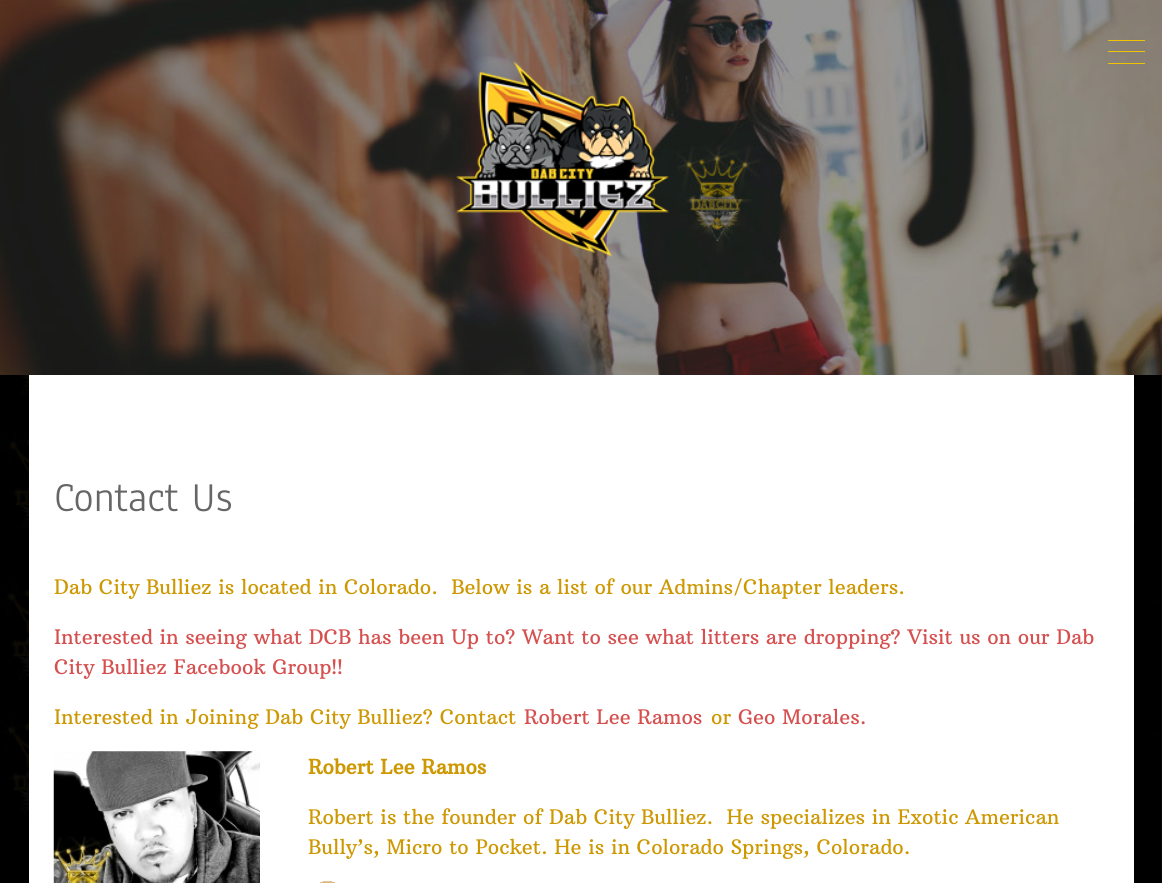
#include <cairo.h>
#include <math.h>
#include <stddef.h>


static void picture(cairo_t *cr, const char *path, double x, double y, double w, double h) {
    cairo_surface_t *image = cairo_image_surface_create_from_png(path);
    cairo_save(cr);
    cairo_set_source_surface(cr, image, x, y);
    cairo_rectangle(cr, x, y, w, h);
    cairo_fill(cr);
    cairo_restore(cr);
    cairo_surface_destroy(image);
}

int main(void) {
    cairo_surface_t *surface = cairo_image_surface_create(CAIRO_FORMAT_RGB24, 1162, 883);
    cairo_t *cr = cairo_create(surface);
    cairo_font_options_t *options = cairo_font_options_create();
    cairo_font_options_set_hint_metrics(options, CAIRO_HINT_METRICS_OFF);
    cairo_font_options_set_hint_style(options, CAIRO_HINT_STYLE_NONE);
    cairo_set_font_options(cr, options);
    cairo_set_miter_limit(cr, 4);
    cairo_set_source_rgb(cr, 1, 1, 1);
    cairo_paint(cr);
    picture(cr, "img1.png", 0, 375, 1162, 508);
    picture(cr, "img2.png", 0, 0, 1162, 375);
    cairo_set_source_rgb(cr, 0.937, 0.765, 0);
    cairo_rectangle(cr, 1108, 40, 37, 1);
    cairo_fill(cr);
    cairo_rectangle(cr, 1108, 51, 37, 1);
    cairo_fill(cr);
    cairo_rectangle(cr, 1108, 63, 37, 1);
    cairo_fill(cr);
    picture(cr, "img3.png", 456, 61, 213, 196);
    cairo_set_source_rgb(cr, 1, 1, 1);
    cairo_rectangle(cr, 29, 375, 1105, 508);
    cairo_fill(cr);
    cairo_select_font_face(cr, "Anaheim", CAIRO_FONT_SLANT_NORMAL, CAIRO_FONT_WEIGHT_NORMAL);
    cairo_set_font_size(cr, 42.5);
    cairo_set_source_rgb(cr, 0.4, 0.4, 0.4);
    cairo_move_to(cr, 54, 511);
    cairo_show_text(cr, "Contact Us");
    cairo_select_font_face(cr, "Arbutus Slab", CAIRO_FONT_SLANT_NORMAL, CAIRO_FONT_WEIGHT_NORMAL);
    cairo_set_font_size(cr, 20);
    cairo_set_source_rgb(cr, 0.808, 0.596, 0.008);
    cairo_move_to(cr, 54, 594);
    cairo_show_text(cr, "Dab City Bulliez is located in Colorado.  Below is a list of our Admins/Chapter leaders.");
    cairo_set_source_rgb(cr, 0.839, 0.314, 0.314);
    cairo_move_to(cr, 54, 644);
    cairo_show_text(cr, "Interested in seeing what DCB has been Up to? Want to see what litters are dropping? Visit us on our Dab");
    cairo_move_to(cr, 54, 674);
    cairo_show_text(cr, "City Bulliez Facebook Group!!");
    cairo_set_source_rgb(cr, 0.808, 0.596, 0.008);
    cairo_move_to(cr, 54, 724);
    cairo_show_text(cr, "Interested in Joining Dab City Bulliez? Contact");
    cairo_set_source_rgb(cr, 0.839, 0.314, 0.314);
    cairo_move_to(cr, 524, 724);
    cairo_show_text(cr, "Robert Lee Ramos");
    cairo_set_source_rgb(cr, 0.808, 0.596, 0.008);
    cairo_move_to(cr, 711, 724);
    cairo_show_text(cr, "or");
    cairo_set_source_rgb(cr, 0.839, 0.314, 0.314);
    cairo_move_to(cr, 738, 724);
    cairo_show_text(cr, "Geo Morales.");
    picture(cr, "img4.png", 53, 751, 207, 132);
    cairo_select_font_face(cr, "Arbutus Slab", CAIRO_FONT_SLANT_NORMAL, CAIRO_FONT_WEIGHT_BOLD);
    cairo_set_source_rgb(cr, 0.808, 0.596, 0.008);
    cairo_move_to(cr, 308, 774);
    cairo_show_text(cr, "Robert Lee Ramos");
    cairo_select_font_face(cr, "Arbutus Slab", CAIRO_FONT_SLANT_NORMAL, CAIRO_FONT_WEIGHT_NORMAL);
    cairo_move_to(cr, 308, 824);
    cairo_show_text(cr, "Robert is the founder of Dab City Bulliez.  He specializes in Exotic American");
    cairo_move_to(cr, 308, 854);
    cairo_show_text(cr, "Bully’s, Micro to Pocket. He is in Colorado Springs, Colorado.");
    picture(cr, "img5.png", 320, 881, 16, 2);
    cairo_surface_write_to_png(surface, "page.png");
    cairo_font_options_destroy(options);
    cairo_destroy(cr);
    cairo_surface_destroy(surface);
    return 0;
}
